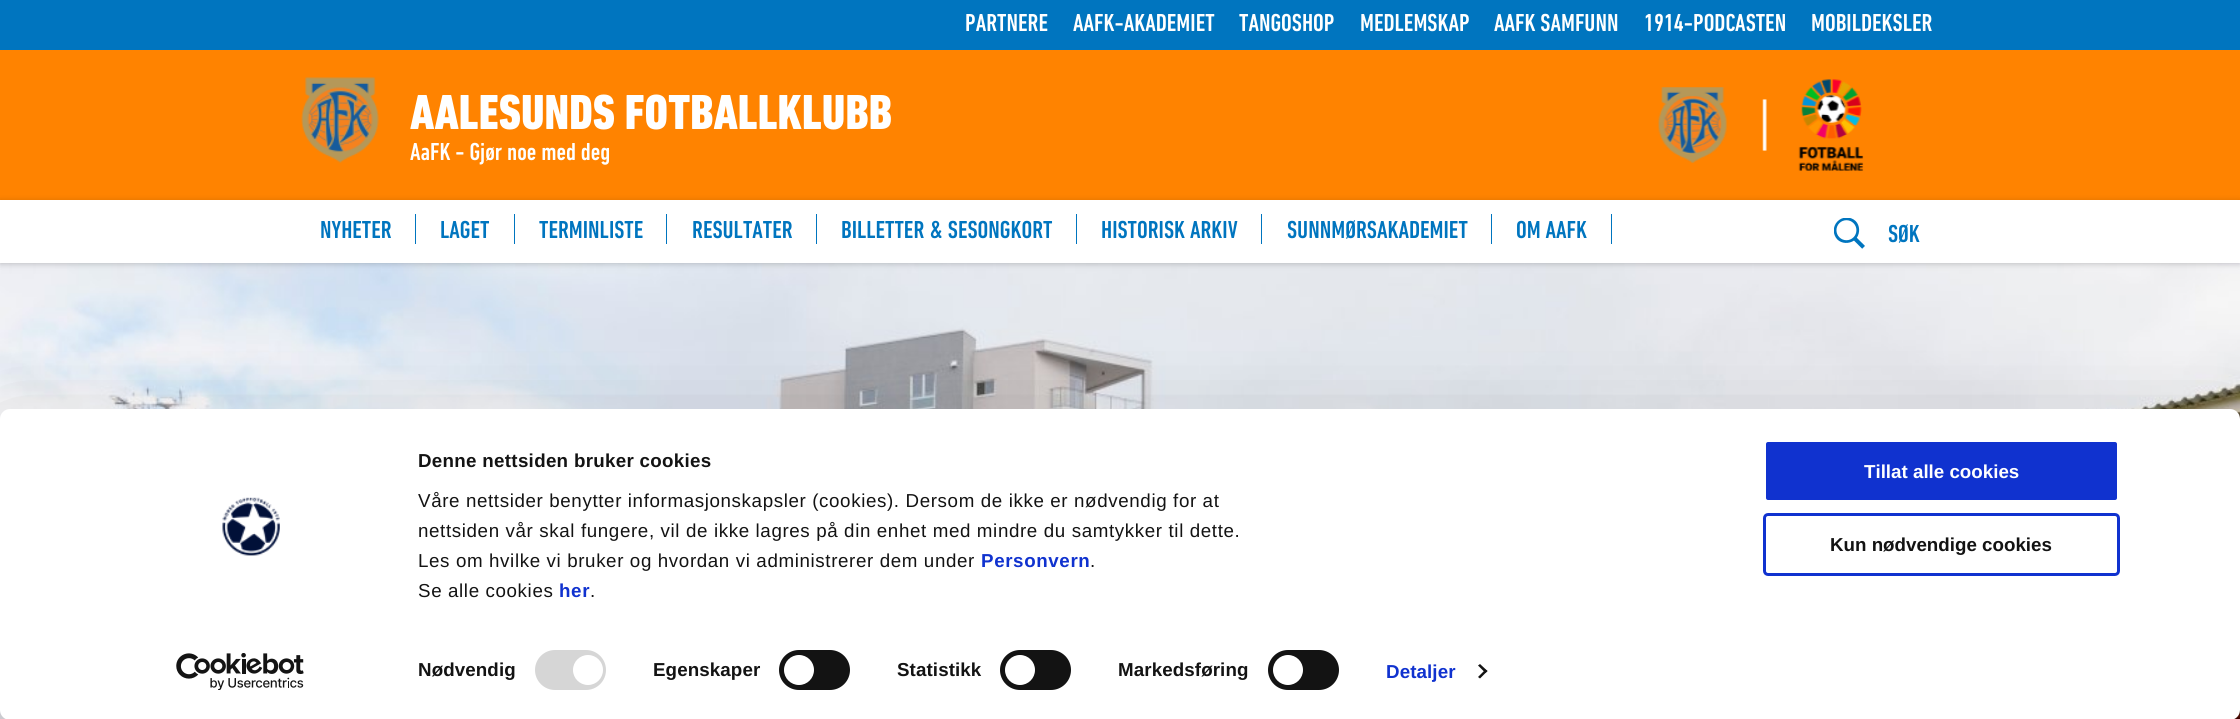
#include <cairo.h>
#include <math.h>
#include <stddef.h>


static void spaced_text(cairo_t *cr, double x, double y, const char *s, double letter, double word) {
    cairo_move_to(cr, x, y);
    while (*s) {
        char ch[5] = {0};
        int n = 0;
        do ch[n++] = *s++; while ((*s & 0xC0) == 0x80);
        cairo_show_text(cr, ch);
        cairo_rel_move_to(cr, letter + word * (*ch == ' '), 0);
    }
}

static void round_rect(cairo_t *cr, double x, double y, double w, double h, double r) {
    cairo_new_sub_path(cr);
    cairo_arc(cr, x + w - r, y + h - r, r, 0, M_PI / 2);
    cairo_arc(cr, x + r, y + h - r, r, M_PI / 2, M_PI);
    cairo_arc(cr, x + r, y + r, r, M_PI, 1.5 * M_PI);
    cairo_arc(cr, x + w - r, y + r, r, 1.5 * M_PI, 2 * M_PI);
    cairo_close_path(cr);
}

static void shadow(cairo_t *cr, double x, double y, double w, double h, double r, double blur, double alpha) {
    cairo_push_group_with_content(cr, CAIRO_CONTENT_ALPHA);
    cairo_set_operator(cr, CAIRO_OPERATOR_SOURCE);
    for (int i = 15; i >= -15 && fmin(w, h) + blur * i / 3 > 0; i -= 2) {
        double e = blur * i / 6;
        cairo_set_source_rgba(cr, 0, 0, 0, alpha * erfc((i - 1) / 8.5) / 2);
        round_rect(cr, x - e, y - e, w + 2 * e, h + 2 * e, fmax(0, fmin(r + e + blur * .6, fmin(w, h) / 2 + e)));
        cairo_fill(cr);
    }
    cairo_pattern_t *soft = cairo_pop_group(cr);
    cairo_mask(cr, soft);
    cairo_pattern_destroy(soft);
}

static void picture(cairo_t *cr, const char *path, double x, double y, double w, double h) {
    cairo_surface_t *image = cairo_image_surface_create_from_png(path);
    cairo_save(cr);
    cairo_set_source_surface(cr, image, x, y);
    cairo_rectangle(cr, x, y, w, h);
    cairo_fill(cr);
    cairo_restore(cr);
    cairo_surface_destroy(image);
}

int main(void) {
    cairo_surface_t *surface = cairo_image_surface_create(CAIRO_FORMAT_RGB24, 2240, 719);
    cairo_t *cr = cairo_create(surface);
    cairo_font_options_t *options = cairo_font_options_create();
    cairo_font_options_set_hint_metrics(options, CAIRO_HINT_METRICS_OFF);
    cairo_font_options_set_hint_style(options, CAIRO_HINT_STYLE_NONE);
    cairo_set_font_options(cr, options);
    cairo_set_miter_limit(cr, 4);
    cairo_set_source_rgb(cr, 1, 1, 1);
    cairo_paint(cr);
    cairo_set_source_rgb(cr, 0, 0.459, 0.749);
    cairo_rectangle(cr, 0, 0, 2240, 50);
    cairo_fill(cr);
    cairo_select_font_face(cr, "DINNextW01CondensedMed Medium", CAIRO_FONT_SLANT_NORMAL, CAIRO_FONT_WEIGHT_NORMAL);
    cairo_set_font_size(cr, 25);
    cairo_set_source_rgb(cr, 1, 1, 1);
    cairo_move_to(cr, 965, 31);
    cairo_show_text(cr, "PARTNERE");
    cairo_move_to(cr, 1073, 31);
    cairo_show_text(cr, "AAFK-AKADEMIET");
    cairo_move_to(cr, 1239, 31);
    cairo_show_text(cr, "TANGOSHOP");
    cairo_move_to(cr, 1360, 31);
    cairo_show_text(cr, "MEDLEMSKAP");
    cairo_move_to(cr, 1494, 31);
    cairo_show_text(cr, "AAFK SAMFUNN");
    cairo_move_to(cr, 1644, 31);
    cairo_show_text(cr, "1914-PODCASTEN");
    cairo_move_to(cr, 1811, 31);
    cairo_show_text(cr, "MOBILDEKSLER");
    cairo_set_source_rgb(cr, 1, 0.514, 0);
    cairo_rectangle(cr, 0, 50, 2240, 150);
    cairo_fill(cr);
    picture(cr, "img1.png", 301, 77, 78, 86);
    cairo_select_font_face(cr, "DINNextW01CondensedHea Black", CAIRO_FONT_SLANT_NORMAL, CAIRO_FONT_WEIGHT_NORMAL);
    cairo_set_font_size(cr, 50);
    cairo_set_source_rgb(cr, 1, 1, 1);
    cairo_move_to(cr, 410, 129);
    cairo_show_text(cr, "AALESUNDS FOTBALLKLUBB");
    cairo_select_font_face(cr, "DINNextW01CondensedMed Medium", CAIRO_FONT_SLANT_NORMAL, CAIRO_FONT_WEIGHT_NORMAL);
    cairo_set_font_size(cr, 25);
    cairo_move_to(cr, 410, 160);
    cairo_show_text(cr, "AaFK - Gjør noe med deg");
    picture(cr, "img4.png", 0, 263, 2240, 456);
    cairo_set_source_rgb(cr, 0, 0, 0);
    shadow(cr, 0, 201, 2240, 63, 0, 3, 0.2);
    cairo_set_source_rgb(cr, 1, 1, 1);
    cairo_rectangle(cr, 0, 200, 2240, 63);
    cairo_fill(cr);
    picture(cr, "img2.png", 1658, 79, 206, 92);
    cairo_set_source_rgb(cr, 0, 0.459, 0.749);
    cairo_move_to(cr, 320, 238);
    cairo_show_text(cr, "NYHETER");
    cairo_rectangle(cr, 415, 214, 1, 30);
    cairo_fill(cr);
    cairo_move_to(cr, 440, 238);
    cairo_show_text(cr, "LAGET");
    cairo_rectangle(cr, 514, 214, 1, 30);
    cairo_fill(cr);
    cairo_move_to(cr, 539, 238);
    cairo_show_text(cr, "TERMINLISTE");
    cairo_rectangle(cr, 666, 214, 1, 30);
    cairo_fill(cr);
    cairo_move_to(cr, 692, 238);
    cairo_show_text(cr, "RESULTATER");
    cairo_rectangle(cr, 816, 214, 1, 30);
    cairo_fill(cr);
    cairo_move_to(cr, 841, 238);
    cairo_show_text(cr, "BILLETTER & SESONGKORT");
    cairo_rectangle(cr, 1076, 214, 1, 30);
    cairo_fill(cr);
    cairo_move_to(cr, 1101, 238);
    cairo_show_text(cr, "HISTORISK ARKIV");
    cairo_rectangle(cr, 1261, 214, 1, 30);
    cairo_fill(cr);
    cairo_move_to(cr, 1287, 238);
    cairo_show_text(cr, "SUNNMØRSAKADEMIET");
    cairo_rectangle(cr, 1491, 214, 1, 30);
    cairo_fill(cr);
    cairo_move_to(cr, 1516, 238);
    cairo_show_text(cr, "OM AAFK");
    cairo_rectangle(cr, 1611, 214, 1, 30);
    cairo_fill(cr);
    picture(cr, "img3.png", 1834, 218, 31, 31);
    cairo_move_to(cr, 1888, 242);
    cairo_show_text(cr, "SØK");
    cairo_set_source_rgb(cr, 0, 0, 0);
    shadow(cr, 0, 446, 2240, 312, 10, 44, 0.3);
    cairo_set_source_rgb(cr, 1, 1, 1);
    round_rect(cr, 0, 409, 2240, 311, 10);
    cairo_fill(cr);
    picture(cr, "img5.png", 222, 497, 58, 59);
    picture(cr, "img6.png", 176, 653, 128, 37);
    cairo_select_font_face(cr, "Liberation Sans", CAIRO_FONT_SLANT_NORMAL, CAIRO_FONT_WEIGHT_BOLD);
    cairo_set_font_size(cr, 18.75);
    cairo_set_source_rgb(cr, 0.078, 0.078, 0.078);
    spaced_text(cr, 418, 467, "Denne nettsiden bruker cookies", 0.3, 0);
    cairo_select_font_face(cr, "Liberation Sans", CAIRO_FONT_SLANT_NORMAL, CAIRO_FONT_WEIGHT_NORMAL);
    spaced_text(cr, 418, 507, "Våre nettsider benytter informasjonskapsler (cookies). Dersom de ikke er nødvendig for at", 0.62, 0);
    spaced_text(cr, 418, 537, "nettsiden vår skal fungere, vil de ikke lagres på din enhet med mindre du samtykker til dette.", 0.62, 0);
    spaced_text(cr, 418, 567, "Les om hvilke vi bruker og hvordan vi administrerer dem under", 0.62, 0);
    cairo_select_font_face(cr, "Liberation Sans", CAIRO_FONT_SLANT_NORMAL, CAIRO_FONT_WEIGHT_BOLD);
    cairo_set_source_rgb(cr, 0.063, 0.196, 0.812);
    spaced_text(cr, 981, 567, "Personvern", 0.62, 0);
    cairo_select_font_face(cr, "Liberation Sans", CAIRO_FONT_SLANT_NORMAL, CAIRO_FONT_WEIGHT_NORMAL);
    cairo_set_source_rgb(cr, 0.078, 0.078, 0.078);
    spaced_text(cr, 1090, 567, ".", 0.62, 0);
    spaced_text(cr, 418, 597, "Se alle cookies", 0.62, 0);
    cairo_select_font_face(cr, "Liberation Sans", CAIRO_FONT_SLANT_NORMAL, CAIRO_FONT_WEIGHT_BOLD);
    cairo_set_source_rgb(cr, 0.063, 0.196, 0.812);
    spaced_text(cr, 559, 597, "her", 0.62, 0);
    cairo_select_font_face(cr, "Liberation Sans", CAIRO_FONT_SLANT_NORMAL, CAIRO_FONT_WEIGHT_NORMAL);
    cairo_set_source_rgb(cr, 0.078, 0.078, 0.078);
    spaced_text(cr, 590, 597, ".", 0.62, 0);
    cairo_select_font_face(cr, "Liberation Sans", CAIRO_FONT_SLANT_NORMAL, CAIRO_FONT_WEIGHT_BOLD);
    spaced_text(cr, 418, 676, "Nødvendig", 0.1, 0);
    cairo_set_source_rgb(cr, 0.839, 0.839, 0.839);
    round_rect(cr, 535, 650, 71, 40, 20);
    cairo_fill(cr);
    cairo_set_source_rgb(cr, 1, 1, 1);
    cairo_arc(cr, 588, 670, 15, 0, 2 * M_PI);
    cairo_fill(cr);
    cairo_set_source_rgb(cr, 0.078, 0.078, 0.078);
    spaced_text(cr, 653, 676, "Egenskaper", 0.1, 0);
    round_rect(cr, 779, 650, 71, 40, 20);
    cairo_fill(cr);
    cairo_set_source_rgb(cr, 1, 1, 1);
    cairo_arc(cr, 799, 670, 15, 0, 2 * M_PI);
    cairo_fill(cr);
    cairo_set_source_rgb(cr, 0.078, 0.078, 0.078);
    spaced_text(cr, 897, 676, "Statistikk", 0.1, 0);
    round_rect(cr, 1000, 650, 71, 40, 20);
    cairo_fill(cr);
    cairo_set_source_rgb(cr, 1, 1, 1);
    cairo_arc(cr, 1020, 670, 15, 0, 2 * M_PI);
    cairo_fill(cr);
    cairo_set_source_rgb(cr, 0.078, 0.078, 0.078);
    spaced_text(cr, 1118, 676, "Markedsføring", 0.1, 0);
    round_rect(cr, 1268, 650, 71, 40, 20);
    cairo_fill(cr);
    cairo_set_source_rgb(cr, 1, 1, 1);
    cairo_arc(cr, 1288, 670, 15, 0, 2 * M_PI);
    cairo_fill(cr);
    cairo_set_source_rgb(cr, 0.063, 0.196, 0.812);
    spaced_text(cr, 1386, 678, "Detaljer", 0.1, 0);
    cairo_set_source_rgb(cr, 0.078, 0.078, 0.078);
    cairo_new_path(cr);
    cairo_move_to(cr, 1480, 664);
    cairo_line_to(cr, 1487.5, 671);
    cairo_line_to(cr, 1485.5, 673);
    cairo_line_to(cr, 1478, 665.5);
    cairo_close_path(cr);
    cairo_fill(cr);
    cairo_new_path(cr);
    cairo_move_to(cr, 1485.5, 669.5);
    cairo_line_to(cr, 1487.5, 671);
    cairo_line_to(cr, 1480, 678.5);
    cairo_line_to(cr, 1478, 677);
    cairo_close_path(cr);
    cairo_fill(cr);
    cairo_set_source_rgb(cr, 0.063, 0.196, 0.812);
    round_rect(cr, 1764.5, 440.5, 354, 61, 3.5);
    cairo_fill_preserve(cr);
    cairo_set_source_rgb(cr, 1, 1, 1);
    cairo_set_line_width(cr, 3);
    cairo_stroke(cr);
    cairo_move_to(cr, 1864, 478);
    cairo_show_text(cr, "Tillat alle cookies");
    round_rect(cr, 1764.5, 514.5, 354, 60, 3.5);
    cairo_set_source_rgb(cr, 0.063, 0.196, 0.812);
    cairo_stroke(cr);
    cairo_set_source_rgb(cr, 0.078, 0.078, 0.078);
    cairo_move_to(cr, 1830, 551);
    cairo_show_text(cr, "Kun nødvendige cookies");
    cairo_surface_write_to_png(surface, "page.png");
    cairo_font_options_destroy(options);
    cairo_destroy(cr);
    cairo_surface_destroy(surface);
    return 0;
}
